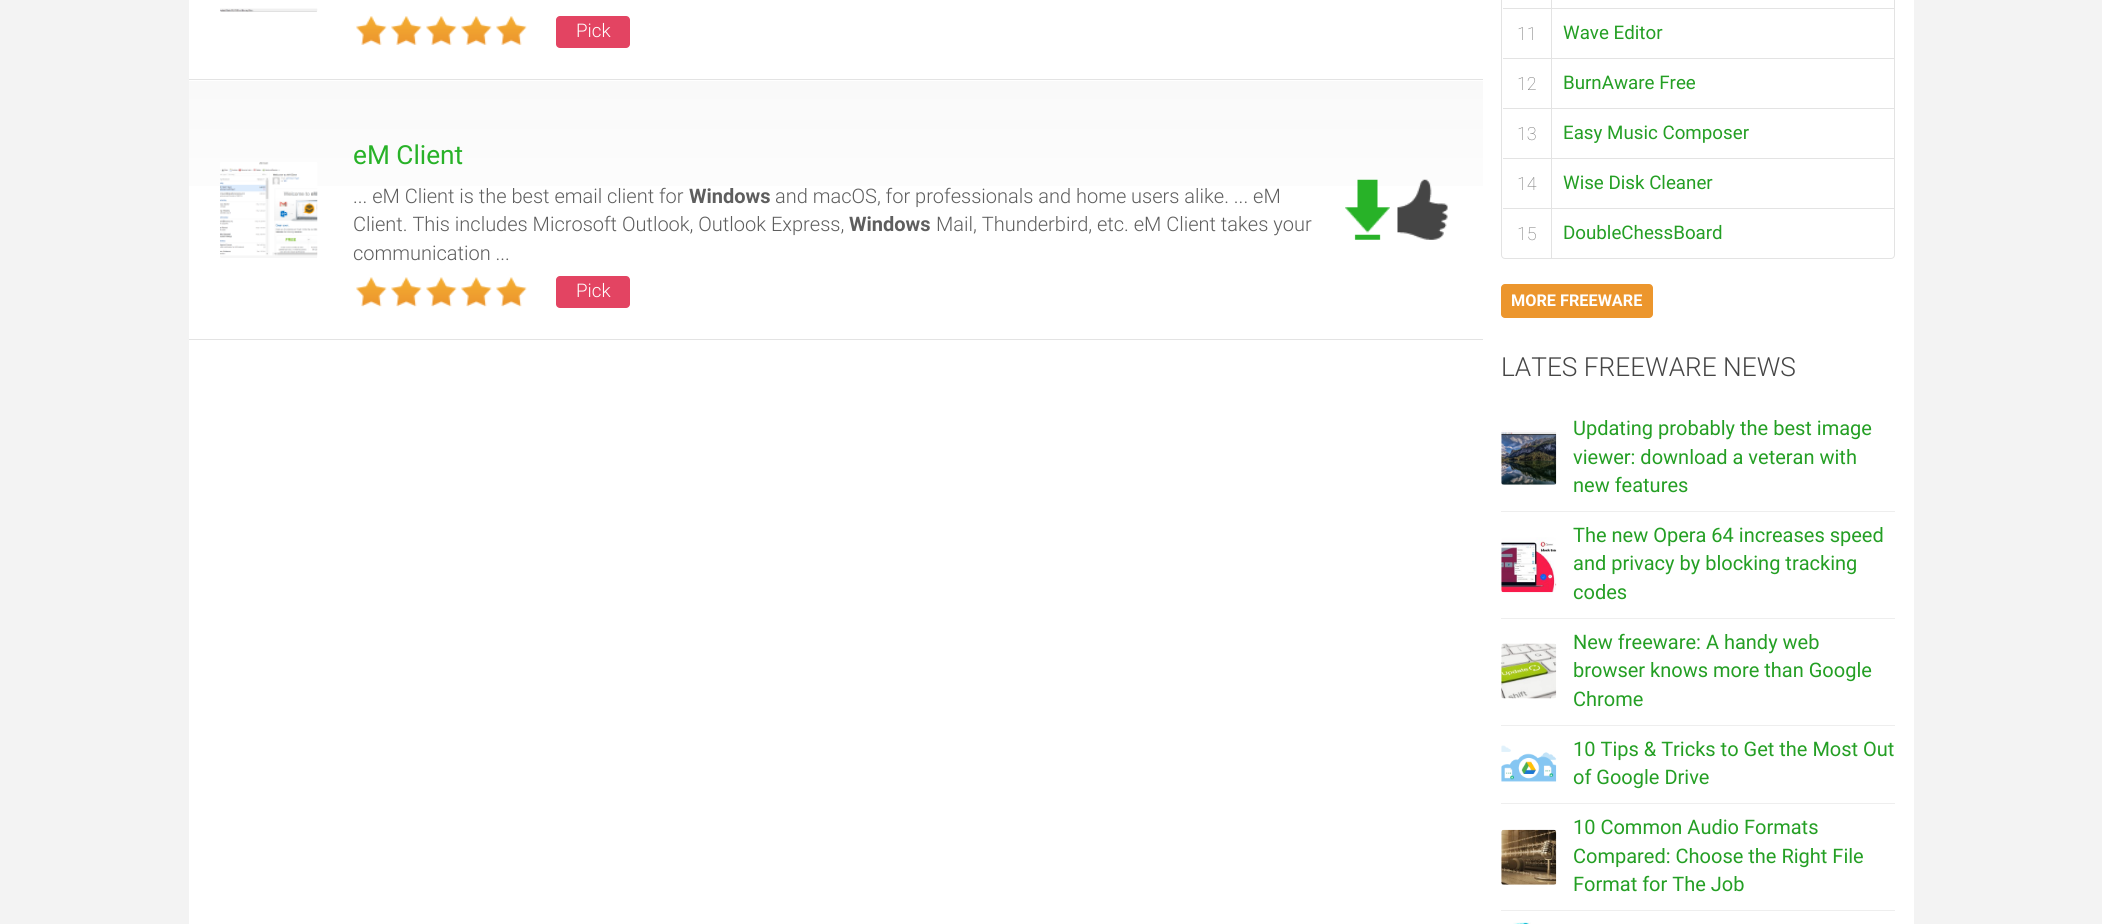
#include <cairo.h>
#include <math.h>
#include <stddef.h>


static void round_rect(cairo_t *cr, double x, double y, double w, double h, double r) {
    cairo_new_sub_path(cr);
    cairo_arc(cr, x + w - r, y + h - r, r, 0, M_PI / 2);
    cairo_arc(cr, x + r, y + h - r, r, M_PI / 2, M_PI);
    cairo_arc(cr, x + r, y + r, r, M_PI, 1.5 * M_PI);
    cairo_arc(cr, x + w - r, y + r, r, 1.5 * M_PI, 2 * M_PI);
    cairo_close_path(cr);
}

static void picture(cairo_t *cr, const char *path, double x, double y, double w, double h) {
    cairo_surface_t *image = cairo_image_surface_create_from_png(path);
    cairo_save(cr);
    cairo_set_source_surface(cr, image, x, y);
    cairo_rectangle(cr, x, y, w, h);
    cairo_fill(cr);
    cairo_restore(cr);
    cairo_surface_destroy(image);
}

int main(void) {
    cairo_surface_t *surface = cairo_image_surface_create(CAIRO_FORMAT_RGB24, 2102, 924);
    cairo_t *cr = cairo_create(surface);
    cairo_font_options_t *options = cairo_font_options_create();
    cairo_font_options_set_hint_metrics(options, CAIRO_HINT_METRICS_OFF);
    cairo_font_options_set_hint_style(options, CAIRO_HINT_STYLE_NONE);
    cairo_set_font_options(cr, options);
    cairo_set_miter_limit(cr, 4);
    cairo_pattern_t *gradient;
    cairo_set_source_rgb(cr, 0.953, 0.953, 0.953);
    cairo_paint(cr);
    cairo_set_source_rgb(cr, 1, 1, 1);
    cairo_rectangle(cr, 189, 0, 1725, 924);
    cairo_fill(cr);
    cairo_set_source_rgb(cr, 0.89, 0.89, 0.89);
    cairo_rectangle(cr, 189, 79, 1294, 1);
    cairo_fill(cr);
    picture(cr, "img1.png", 220, 8, 98, 4);
    picture(cr, "img2.png", 356, 16, 31, 29);
    picture(cr, "img2.png", 391, 16, 31, 29);
    picture(cr, "img2.png", 426, 16, 31, 29);
    picture(cr, "img2.png", 461, 16, 31, 29);
    picture(cr, "img2.png", 496, 16, 31, 29);
    cairo_set_source_rgb(cr, 0.89, 0.267, 0.384);
    round_rect(cr, 556, 16, 74, 32, 4);
    cairo_fill(cr);
    cairo_select_font_face(cr, "Roboto Light", CAIRO_FONT_SLANT_NORMAL, CAIRO_FONT_WEIGHT_NORMAL);
    cairo_set_font_size(cr, 18.75);
    cairo_set_source_rgb(cr, 1, 1, 1);
    cairo_move_to(cr, 576, 37);
    cairo_show_text(cr, "Pick");
    gradient = cairo_pattern_create_linear(836, 339, 836, 81);
    cairo_pattern_add_color_stop_rgba(gradient, 0, 1, 1, 1, 1);
    cairo_pattern_add_color_stop_rgba(gradient, 0.3, 1, 1, 1, 1);
    cairo_pattern_add_color_stop_rgba(gradient, 1, 0.976, 0.976, 0.976, 1);
    cairo_set_source(cr, gradient);
    cairo_pattern_destroy(gradient);
    cairo_rectangle(cr, 189, 81, 1294, 105);
    cairo_fill(cr);
    cairo_set_source_rgb(cr, 0.89, 0.89, 0.89);
    cairo_rectangle(cr, 189, 339, 1294, 1);
    cairo_fill(cr);
    picture(cr, "img3.png", 220, 162, 98, 96);
    cairo_select_font_face(cr, "Roboto", CAIRO_FONT_SLANT_NORMAL, CAIRO_FONT_WEIGHT_NORMAL);
    cairo_set_font_size(cr, 26.25);
    cairo_set_source_rgb(cr, 0.157, 0.698, 0.157);
    cairo_move_to(cr, 353, 164);
    cairo_show_text(cr, "eM Client");
    cairo_select_font_face(cr, "Roboto Light", CAIRO_FONT_SLANT_NORMAL, CAIRO_FONT_WEIGHT_NORMAL);
    cairo_set_font_size(cr, 20);
    cairo_set_source_rgb(cr, 0.369, 0.369, 0.369);
    cairo_move_to(cr, 353, 203);
    cairo_show_text(cr, "... eM Client is the best email client for");
    cairo_select_font_face(cr, "Roboto", CAIRO_FONT_SLANT_NORMAL, CAIRO_FONT_WEIGHT_BOLD);
    cairo_move_to(cr, 689, 203);
    cairo_show_text(cr, "Windows");
    cairo_select_font_face(cr, "Roboto Light", CAIRO_FONT_SLANT_NORMAL, CAIRO_FONT_WEIGHT_NORMAL);
    cairo_move_to(cr, 775, 203);
    cairo_show_text(cr, "and macOS, for professionals and home users alike. ... eM");
    cairo_move_to(cr, 353, 231);
    cairo_show_text(cr, "Client. This includes Microsoft Outlook, Outlook Express,");
    cairo_select_font_face(cr, "Roboto", CAIRO_FONT_SLANT_NORMAL, CAIRO_FONT_WEIGHT_BOLD);
    cairo_move_to(cr, 849, 231);
    cairo_show_text(cr, "Windows");
    cairo_select_font_face(cr, "Roboto Light", CAIRO_FONT_SLANT_NORMAL, CAIRO_FONT_WEIGHT_NORMAL);
    cairo_move_to(cr, 936, 231);
    cairo_show_text(cr, "Mail, Thunderbird, etc. eM Client takes your");
    cairo_move_to(cr, 353, 260);
    cairo_show_text(cr, "communication ...");
    picture(cr, "img4.png", 356, 277, 31, 30);
    picture(cr, "img4.png", 391, 277, 31, 30);
    picture(cr, "img4.png", 426, 277, 31, 30);
    picture(cr, "img4.png", 461, 277, 31, 30);
    picture(cr, "img4.png", 496, 277, 31, 30);
    cairo_set_source_rgb(cr, 0.89, 0.267, 0.384);
    round_rect(cr, 556, 276, 74, 32, 4);
    cairo_fill(cr);
    cairo_set_font_size(cr, 18.75);
    cairo_set_source_rgb(cr, 1, 1, 1);
    cairo_move_to(cr, 576, 297);
    cairo_show_text(cr, "Pick");
    picture(cr, "img5.png", 1345, 179, 45, 61);
    picture(cr, "img6.png", 1397, 179, 51, 61);
    round_rect(cr, 1501.5, -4.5, 393, 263, 3.5);
    cairo_set_source_rgb(cr, 0.89, 0.89, 0.89);
    cairo_set_line_width(cr, 1);
    cairo_stroke(cr);
    cairo_rectangle(cr, 1551, 0, 1, 8);
    cairo_fill(cr);
    cairo_rectangle(cr, 1503, 8, 391, 1);
    cairo_fill(cr);
    cairo_rectangle(cr, 1551, 8, 1, 50);
    cairo_fill(cr);
    cairo_select_font_face(cr, "Roboto Thin", CAIRO_FONT_SLANT_NORMAL, CAIRO_FONT_WEIGHT_NORMAL);
    cairo_set_font_size(cr, 18);
    cairo_set_source_rgb(cr, 0.447, 0.447, 0.447);
    cairo_move_to(cr, 1517, 40);
    cairo_show_text(cr, "11");
    cairo_select_font_face(cr, "Roboto", CAIRO_FONT_SLANT_NORMAL, CAIRO_FONT_WEIGHT_NORMAL);
    cairo_set_font_size(cr, 18.75);
    cairo_set_source_rgb(cr, 0.141, 0.624, 0.141);
    cairo_move_to(cr, 1563, 39);
    cairo_show_text(cr, "Wave Editor");
    cairo_set_source_rgb(cr, 0.89, 0.89, 0.89);
    cairo_rectangle(cr, 1503, 58, 391, 1);
    cairo_fill(cr);
    cairo_rectangle(cr, 1551, 58, 1, 50);
    cairo_fill(cr);
    cairo_select_font_face(cr, "Roboto Thin", CAIRO_FONT_SLANT_NORMAL, CAIRO_FONT_WEIGHT_NORMAL);
    cairo_set_font_size(cr, 18);
    cairo_set_source_rgb(cr, 0.447, 0.447, 0.447);
    cairo_move_to(cr, 1517, 90);
    cairo_show_text(cr, "12");
    cairo_select_font_face(cr, "Roboto", CAIRO_FONT_SLANT_NORMAL, CAIRO_FONT_WEIGHT_NORMAL);
    cairo_set_font_size(cr, 18.75);
    cairo_set_source_rgb(cr, 0.141, 0.624, 0.141);
    cairo_move_to(cr, 1563, 89);
    cairo_show_text(cr, "BurnAware Free");
    cairo_set_source_rgb(cr, 0.89, 0.89, 0.89);
    cairo_rectangle(cr, 1503, 108, 391, 1);
    cairo_fill(cr);
    cairo_rectangle(cr, 1551, 108, 1, 50);
    cairo_fill(cr);
    cairo_select_font_face(cr, "Roboto Thin", CAIRO_FONT_SLANT_NORMAL, CAIRO_FONT_WEIGHT_NORMAL);
    cairo_set_font_size(cr, 18);
    cairo_set_source_rgb(cr, 0.447, 0.447, 0.447);
    cairo_move_to(cr, 1517, 140);
    cairo_show_text(cr, "13");
    cairo_select_font_face(cr, "Roboto", CAIRO_FONT_SLANT_NORMAL, CAIRO_FONT_WEIGHT_NORMAL);
    cairo_set_font_size(cr, 18.75);
    cairo_set_source_rgb(cr, 0.141, 0.624, 0.141);
    cairo_move_to(cr, 1563, 139);
    cairo_show_text(cr, "Easy Music Composer");
    cairo_set_source_rgb(cr, 0.89, 0.89, 0.89);
    cairo_rectangle(cr, 1503, 158, 391, 1);
    cairo_fill(cr);
    cairo_rectangle(cr, 1551, 158, 1, 50);
    cairo_fill(cr);
    cairo_select_font_face(cr, "Roboto Thin", CAIRO_FONT_SLANT_NORMAL, CAIRO_FONT_WEIGHT_NORMAL);
    cairo_set_font_size(cr, 18);
    cairo_set_source_rgb(cr, 0.447, 0.447, 0.447);
    cairo_move_to(cr, 1517, 190);
    cairo_show_text(cr, "14");
    cairo_select_font_face(cr, "Roboto", CAIRO_FONT_SLANT_NORMAL, CAIRO_FONT_WEIGHT_NORMAL);
    cairo_set_font_size(cr, 18.75);
    cairo_set_source_rgb(cr, 0.141, 0.624, 0.141);
    cairo_move_to(cr, 1563, 189);
    cairo_show_text(cr, "Wise Disk Cleaner");
    cairo_set_source_rgb(cr, 0.89, 0.89, 0.89);
    cairo_rectangle(cr, 1503, 208, 391, 1);
    cairo_fill(cr);
    cairo_rectangle(cr, 1551, 208, 1, 50);
    cairo_fill(cr);
    cairo_select_font_face(cr, "Roboto Thin", CAIRO_FONT_SLANT_NORMAL, CAIRO_FONT_WEIGHT_NORMAL);
    cairo_set_font_size(cr, 18);
    cairo_set_source_rgb(cr, 0.447, 0.447, 0.447);
    cairo_move_to(cr, 1517, 240);
    cairo_show_text(cr, "15");
    cairo_select_font_face(cr, "Roboto", CAIRO_FONT_SLANT_NORMAL, CAIRO_FONT_WEIGHT_NORMAL);
    cairo_set_font_size(cr, 18.75);
    cairo_set_source_rgb(cr, 0.141, 0.624, 0.141);
    cairo_move_to(cr, 1563, 239);
    cairo_show_text(cr, "DoubleChessBoard");
    cairo_set_source_rgb(cr, 0.925, 0.588, 0.176);
    round_rect(cr, 1501, 284, 152, 34, 4);
    cairo_fill(cr);
    cairo_select_font_face(cr, "Roboto", CAIRO_FONT_SLANT_NORMAL, CAIRO_FONT_WEIGHT_BOLD);
    cairo_set_font_size(cr, 16.25);
    cairo_set_source_rgb(cr, 1, 1, 1);
    cairo_move_to(cr, 1511, 306);
    cairo_show_text(cr, "MORE FREEWARE");
    cairo_select_font_face(cr, "Roboto Light", CAIRO_FONT_SLANT_NORMAL, CAIRO_FONT_WEIGHT_NORMAL);
    cairo_set_font_size(cr, 26.25);
    cairo_set_source_rgb(cr, 0.271, 0.271, 0.271);
    cairo_move_to(cr, 1501, 376);
    cairo_show_text(cr, "LATES FREEWARE NEWS");
    picture(cr, "img7.png", 1501, 430, 56, 55);
    cairo_select_font_face(cr, "Roboto", CAIRO_FONT_SLANT_NORMAL, CAIRO_FONT_WEIGHT_NORMAL);
    cairo_set_font_size(cr, 20);
    cairo_set_source_rgb(cr, 0.141, 0.624, 0.141);
    cairo_move_to(cr, 1573, 435);
    cairo_show_text(cr, "Updating probably the best image");
    cairo_move_to(cr, 1573, 464);
    cairo_show_text(cr, "viewer: download a veteran with");
    cairo_move_to(cr, 1573, 492);
    cairo_show_text(cr, "new features");
    cairo_set_source_rgb(cr, 0.933, 0.933, 0.933);
    cairo_rectangle(cr, 1501, 511, 394, 1);
    cairo_fill(cr);
    picture(cr, "img8.png", 1501, 537, 56, 56);
    cairo_set_source_rgb(cr, 0.141, 0.624, 0.141);
    cairo_move_to(cr, 1573, 542);
    cairo_show_text(cr, "The new Opera 64 increases speed");
    cairo_move_to(cr, 1573, 570);
    cairo_show_text(cr, "and privacy by blocking tracking");
    cairo_move_to(cr, 1573, 599);
    cairo_show_text(cr, "codes");
    cairo_set_source_rgb(cr, 0.933, 0.933, 0.933);
    cairo_rectangle(cr, 1501, 618, 394, 1);
    cairo_fill(cr);
    picture(cr, "img9.png", 1501, 643, 56, 56);
    cairo_set_source_rgb(cr, 0.141, 0.624, 0.141);
    cairo_move_to(cr, 1573, 649);
    cairo_show_text(cr, "New freeware: A handy web");
    cairo_move_to(cr, 1573, 677);
    cairo_show_text(cr, "browser knows more than Google");
    cairo_move_to(cr, 1573, 706);
    cairo_show_text(cr, "Chrome");
    cairo_set_source_rgb(cr, 0.933, 0.933, 0.933);
    cairo_rectangle(cr, 1501, 725, 394, 1);
    cairo_fill(cr);
    picture(cr, "img10.png", 1501, 745, 56, 37);
    cairo_set_source_rgb(cr, 0.141, 0.624, 0.141);
    cairo_move_to(cr, 1573, 756);
    cairo_show_text(cr, "10 Tips & Tricks to Get the Most Out");
    cairo_move_to(cr, 1573, 784);
    cairo_show_text(cr, "of Google Drive");
    cairo_set_source_rgb(cr, 0.933, 0.933, 0.933);
    cairo_rectangle(cr, 1501, 803, 394, 1);
    cairo_fill(cr);
    picture(cr, "img11.png", 1501, 829, 56, 56);
    cairo_set_source_rgb(cr, 0.141, 0.624, 0.141);
    cairo_move_to(cr, 1573, 834);
    cairo_show_text(cr, "10 Common Audio Formats");
    cairo_move_to(cr, 1573, 863);
    cairo_show_text(cr, "Compared: Choose the Right File");
    cairo_move_to(cr, 1573, 891);
    cairo_show_text(cr, "Format for The Job");
    cairo_set_source_rgb(cr, 0.933, 0.933, 0.933);
    cairo_rectangle(cr, 1501, 910, 394, 1);
    cairo_fill(cr);
    picture(cr, "img12.png", 1513, 922, 18, 2);
    cairo_surface_write_to_png(surface, "page.png");
    cairo_font_options_destroy(options);
    cairo_destroy(cr);
    cairo_surface_destroy(surface);
    return 0;
}
